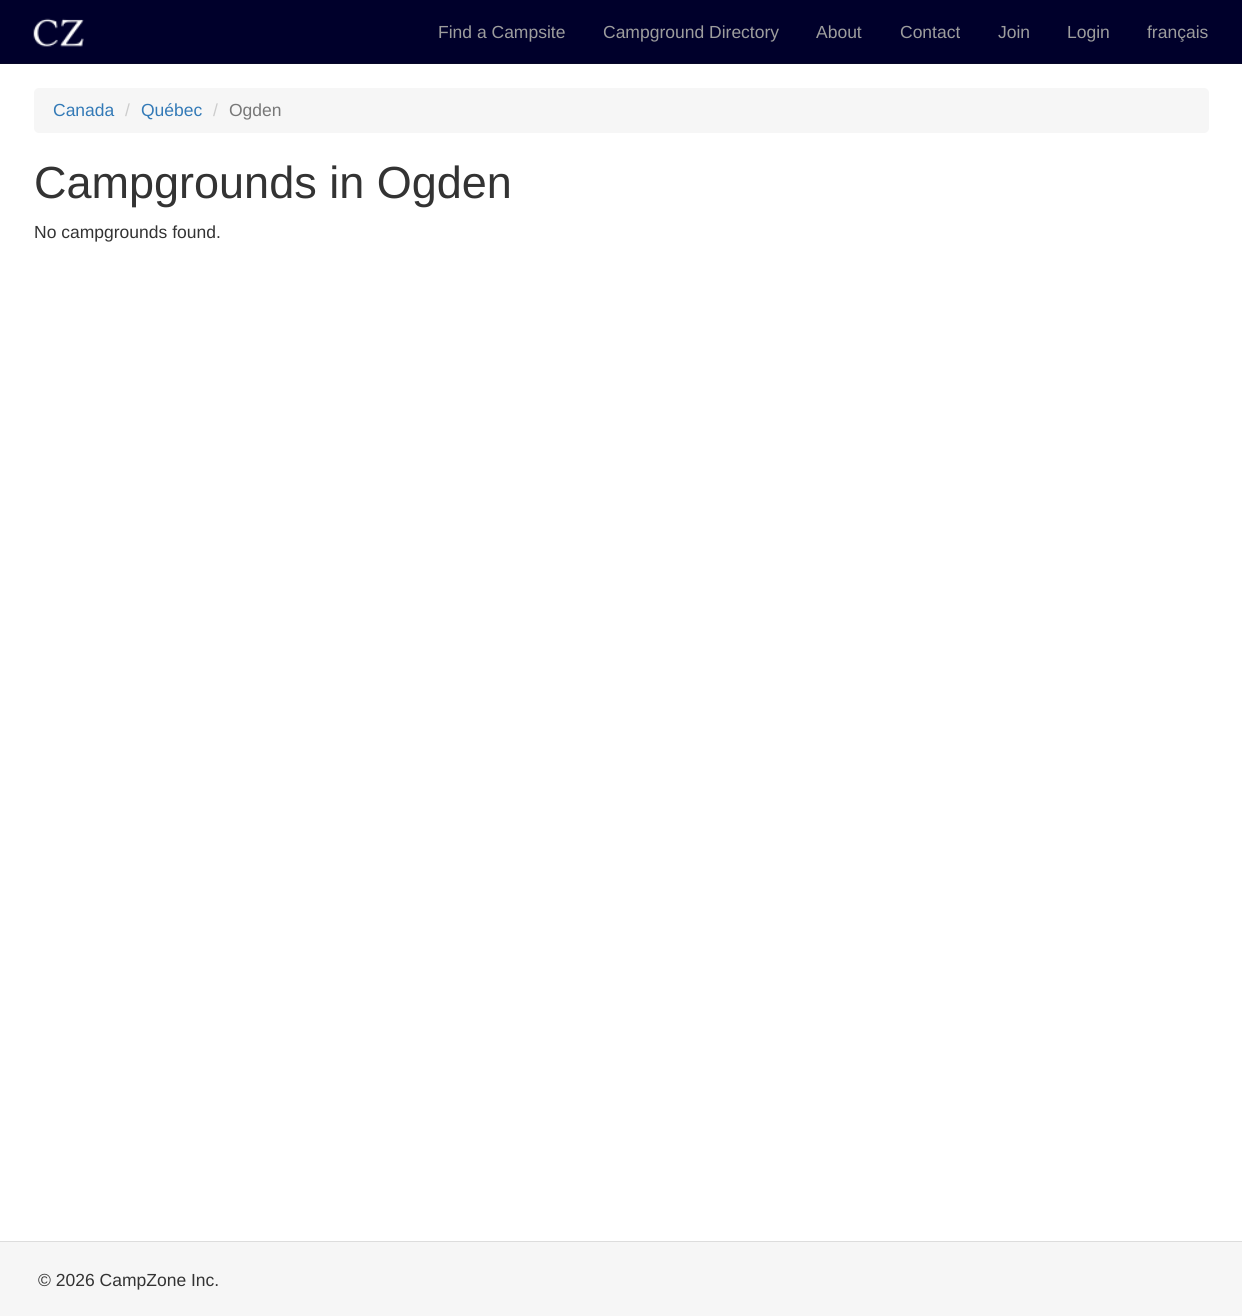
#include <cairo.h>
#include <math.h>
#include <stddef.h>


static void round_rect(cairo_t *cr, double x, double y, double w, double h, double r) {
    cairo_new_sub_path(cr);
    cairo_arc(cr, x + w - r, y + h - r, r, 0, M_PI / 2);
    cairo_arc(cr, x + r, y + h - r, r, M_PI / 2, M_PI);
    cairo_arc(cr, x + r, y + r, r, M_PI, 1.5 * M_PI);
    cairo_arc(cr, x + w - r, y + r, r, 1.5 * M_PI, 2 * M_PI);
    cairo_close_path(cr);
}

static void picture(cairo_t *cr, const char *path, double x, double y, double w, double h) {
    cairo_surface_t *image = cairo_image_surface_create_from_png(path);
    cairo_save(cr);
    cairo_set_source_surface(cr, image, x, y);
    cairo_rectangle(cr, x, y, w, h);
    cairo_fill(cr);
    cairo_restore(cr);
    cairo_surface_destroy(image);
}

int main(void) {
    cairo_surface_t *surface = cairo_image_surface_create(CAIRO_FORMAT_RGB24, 1242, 1316);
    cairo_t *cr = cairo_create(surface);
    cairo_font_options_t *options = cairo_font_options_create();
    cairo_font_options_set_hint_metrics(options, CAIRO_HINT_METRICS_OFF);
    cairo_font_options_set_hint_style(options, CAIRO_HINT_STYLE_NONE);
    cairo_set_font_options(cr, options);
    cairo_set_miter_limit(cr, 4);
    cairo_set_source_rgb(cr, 1, 1, 1);
    cairo_paint(cr);
    cairo_set_source_rgb(cr, 0, 0, 0.169);
    cairo_rectangle(cr, 0, 0, 1242, 63);
    cairo_fill(cr);
    cairo_set_source_rgb(cr, 0.031, 0.031, 0.157);
    cairo_rectangle(cr, 0, 63, 1242, 1);
    cairo_fill(cr);
    picture(cr, "img1.png", 33, 18, 51, 29);
    cairo_select_font_face(cr, "Liberation Sans", CAIRO_FONT_SLANT_NORMAL, CAIRO_FONT_WEIGHT_NORMAL);
    cairo_set_font_size(cr, 17.5);
    cairo_set_source_rgb(cr, 0.616, 0.616, 0.616);
    cairo_move_to(cr, 438, 38);
    cairo_show_text(cr, "Find a Campsite");
    cairo_move_to(cr, 603, 38);
    cairo_show_text(cr, "Campground Directory");
    cairo_move_to(cr, 816, 38);
    cairo_show_text(cr, "About");
    cairo_move_to(cr, 900, 38);
    cairo_show_text(cr, "Contact");
    cairo_move_to(cr, 998, 38);
    cairo_show_text(cr, "Join");
    cairo_move_to(cr, 1067, 38);
    cairo_show_text(cr, "Login");
    cairo_move_to(cr, 1147, 38);
    cairo_show_text(cr, "français");
    cairo_set_source_rgb(cr, 0.961, 0.961, 0.961);
    round_rect(cr, 34, 88, 1175, 45, 5);
    cairo_fill(cr);
    cairo_set_source_rgb(cr, 0.2, 0.478, 0.718);
    cairo_move_to(cr, 53, 116);
    cairo_show_text(cr, "Canada");
    cairo_set_source_rgb(cr, 0.8, 0.8, 0.8);
    cairo_move_to(cr, 125, 116);
    cairo_show_text(cr, "/");
    cairo_set_source_rgb(cr, 0.2, 0.478, 0.718);
    cairo_move_to(cr, 141, 116);
    cairo_show_text(cr, "Québec");
    cairo_set_source_rgb(cr, 0.8, 0.8, 0.8);
    cairo_move_to(cr, 213, 116);
    cairo_show_text(cr, "/");
    cairo_set_source_rgb(cr, 0.467, 0.467, 0.467);
    cairo_move_to(cr, 229, 116);
    cairo_show_text(cr, "Ogden");
    cairo_set_font_size(cr, 45);
    cairo_set_source_rgb(cr, 0.2, 0.2, 0.2);
    cairo_move_to(cr, 34, 198);
    cairo_show_text(cr, "Campgrounds in Ogden");
    cairo_set_font_size(cr, 17.5);
    cairo_move_to(cr, 34, 238);
    cairo_show_text(cr, "No campgrounds found.");
    cairo_set_source_rgb(cr, 0.961, 0.961, 0.961);
    cairo_rectangle(cr, 0, 1242, 1242, 74);
    cairo_fill(cr);
    cairo_set_source_rgb(cr, 0.867, 0.867, 0.867);
    cairo_rectangle(cr, 0, 1241, 1242, 1);
    cairo_fill(cr);
    cairo_set_source_rgb(cr, 0.2, 0.2, 0.2);
    cairo_move_to(cr, 38, 1286);
    cairo_show_text(cr, "© 2026 CampZone Inc.");
    cairo_surface_write_to_png(surface, "page.png");
    cairo_font_options_destroy(options);
    cairo_destroy(cr);
    cairo_surface_destroy(surface);
    return 0;
}
